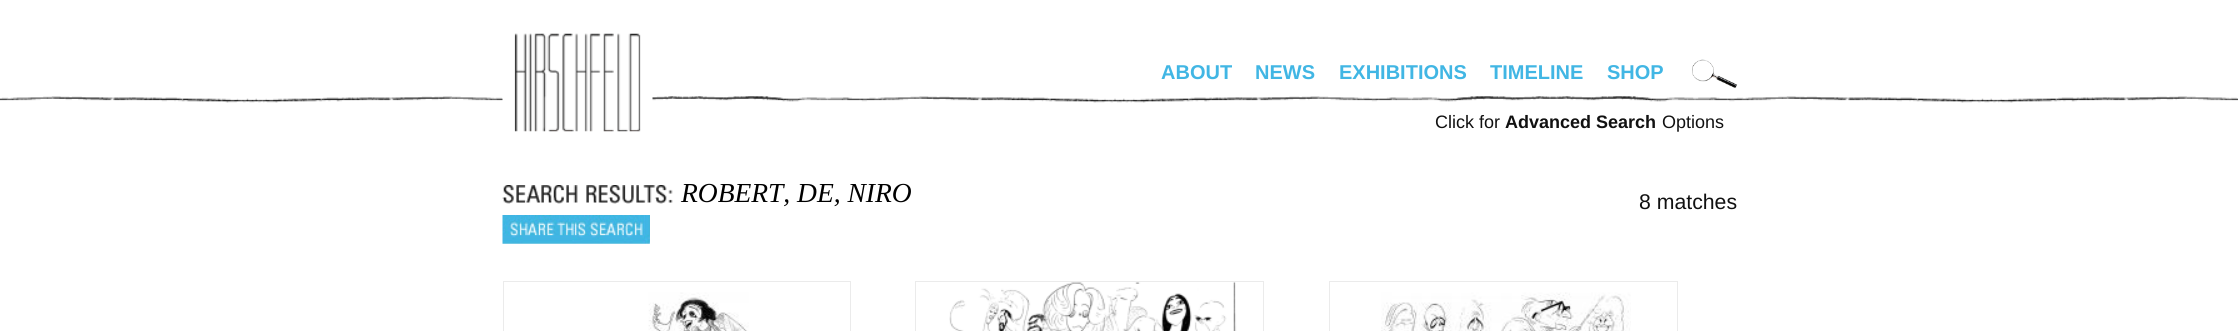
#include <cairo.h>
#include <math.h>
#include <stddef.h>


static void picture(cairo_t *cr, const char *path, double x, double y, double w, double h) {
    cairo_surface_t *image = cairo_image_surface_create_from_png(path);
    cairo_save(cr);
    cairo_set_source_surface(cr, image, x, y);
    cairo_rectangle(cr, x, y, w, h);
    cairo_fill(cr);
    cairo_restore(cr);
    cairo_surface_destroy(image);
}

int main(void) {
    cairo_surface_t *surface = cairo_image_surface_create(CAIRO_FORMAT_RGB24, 2238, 331);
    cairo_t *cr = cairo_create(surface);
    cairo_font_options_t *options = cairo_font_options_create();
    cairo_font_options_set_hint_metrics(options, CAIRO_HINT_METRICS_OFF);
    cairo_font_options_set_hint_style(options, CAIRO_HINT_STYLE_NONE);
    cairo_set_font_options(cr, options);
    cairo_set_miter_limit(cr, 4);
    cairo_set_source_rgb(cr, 1, 1, 1);
    cairo_paint(cr);
    picture(cr, "img1.png", 0, 96, 2238, 7);
    picture(cr, "img2.png", 502, 33, 151, 99);
    cairo_select_font_face(cr, "Liberation Sans", CAIRO_FONT_SLANT_NORMAL, CAIRO_FONT_WEIGHT_BOLD);
    cairo_set_font_size(cr, 20);
    cairo_set_source_rgb(cr, 0.255, 0.714, 0.894);
    cairo_move_to(cr, 1161, 79);
    cairo_show_text(cr, "ABOUT");
    cairo_move_to(cr, 1255, 79);
    cairo_show_text(cr, "NEWS");
    cairo_move_to(cr, 1339, 79);
    cairo_show_text(cr, "EXHIBITIONS");
    cairo_move_to(cr, 1490, 79);
    cairo_show_text(cr, "TIMELINE");
    cairo_move_to(cr, 1607, 79);
    cairo_show_text(cr, "SHOP");
    picture(cr, "img3.png", 1692, 59, 46, 29);
    cairo_select_font_face(cr, "Liberation Sans", CAIRO_FONT_SLANT_NORMAL, CAIRO_FONT_WEIGHT_NORMAL);
    cairo_set_font_size(cr, 18);
    cairo_set_source_rgb(cr, 0.067, 0.067, 0.067);
    cairo_move_to(cr, 1435, 128);
    cairo_show_text(cr, "Click for");
    cairo_select_font_face(cr, "Liberation Sans", CAIRO_FONT_SLANT_NORMAL, CAIRO_FONT_WEIGHT_BOLD);
    cairo_move_to(cr, 1505, 128);
    cairo_show_text(cr, "Advanced Search");
    cairo_select_font_face(cr, "Liberation Sans", CAIRO_FONT_SLANT_NORMAL, CAIRO_FONT_WEIGHT_NORMAL);
    cairo_move_to(cr, 1662, 128);
    cairo_show_text(cr, "Options");
    picture(cr, "img4.png", 502, 185, 171, 19);
    cairo_select_font_face(cr, "Liberation Serif", CAIRO_FONT_SLANT_ITALIC, CAIRO_FONT_WEIGHT_NORMAL);
    cairo_set_font_size(cr, 27.5);
    cairo_set_source_rgb(cr, 0, 0, 0);
    cairo_move_to(cr, 681, 202);
    cairo_show_text(cr, "ROBERT, DE, NIRO");
    picture(cr, "img5.png", 502, 215, 148, 29);
    cairo_select_font_face(cr, "Liberation Sans", CAIRO_FONT_SLANT_NORMAL, CAIRO_FONT_WEIGHT_NORMAL);
    cairo_set_font_size(cr, 21.25);
    cairo_set_source_rgb(cr, 0.067, 0.067, 0.067);
    cairo_move_to(cr, 1639, 209);
    cairo_show_text(cr, "8 matches");
    cairo_rectangle(cr, 503.5, 281.5, 347, 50);
    cairo_set_source_rgb(cr, 0.918, 0.918, 0.918);
    cairo_set_line_width(cr, 1);
    cairo_stroke(cr);
    picture(cr, "img6.png", 648, 292, 101, 39);
    cairo_rectangle(cr, 915.5, 281.5, 348, 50);
    cairo_stroke(cr);
    picture(cr, "img7.png", 949, 282, 288, 49);
    cairo_rectangle(cr, 1329.5, 281.5, 348, 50);
    cairo_stroke(cr);
    picture(cr, "img8.png", 1381, 292, 250, 39);
    cairo_surface_write_to_png(surface, "page.png");
    cairo_font_options_destroy(options);
    cairo_destroy(cr);
    cairo_surface_destroy(surface);
    return 0;
}
